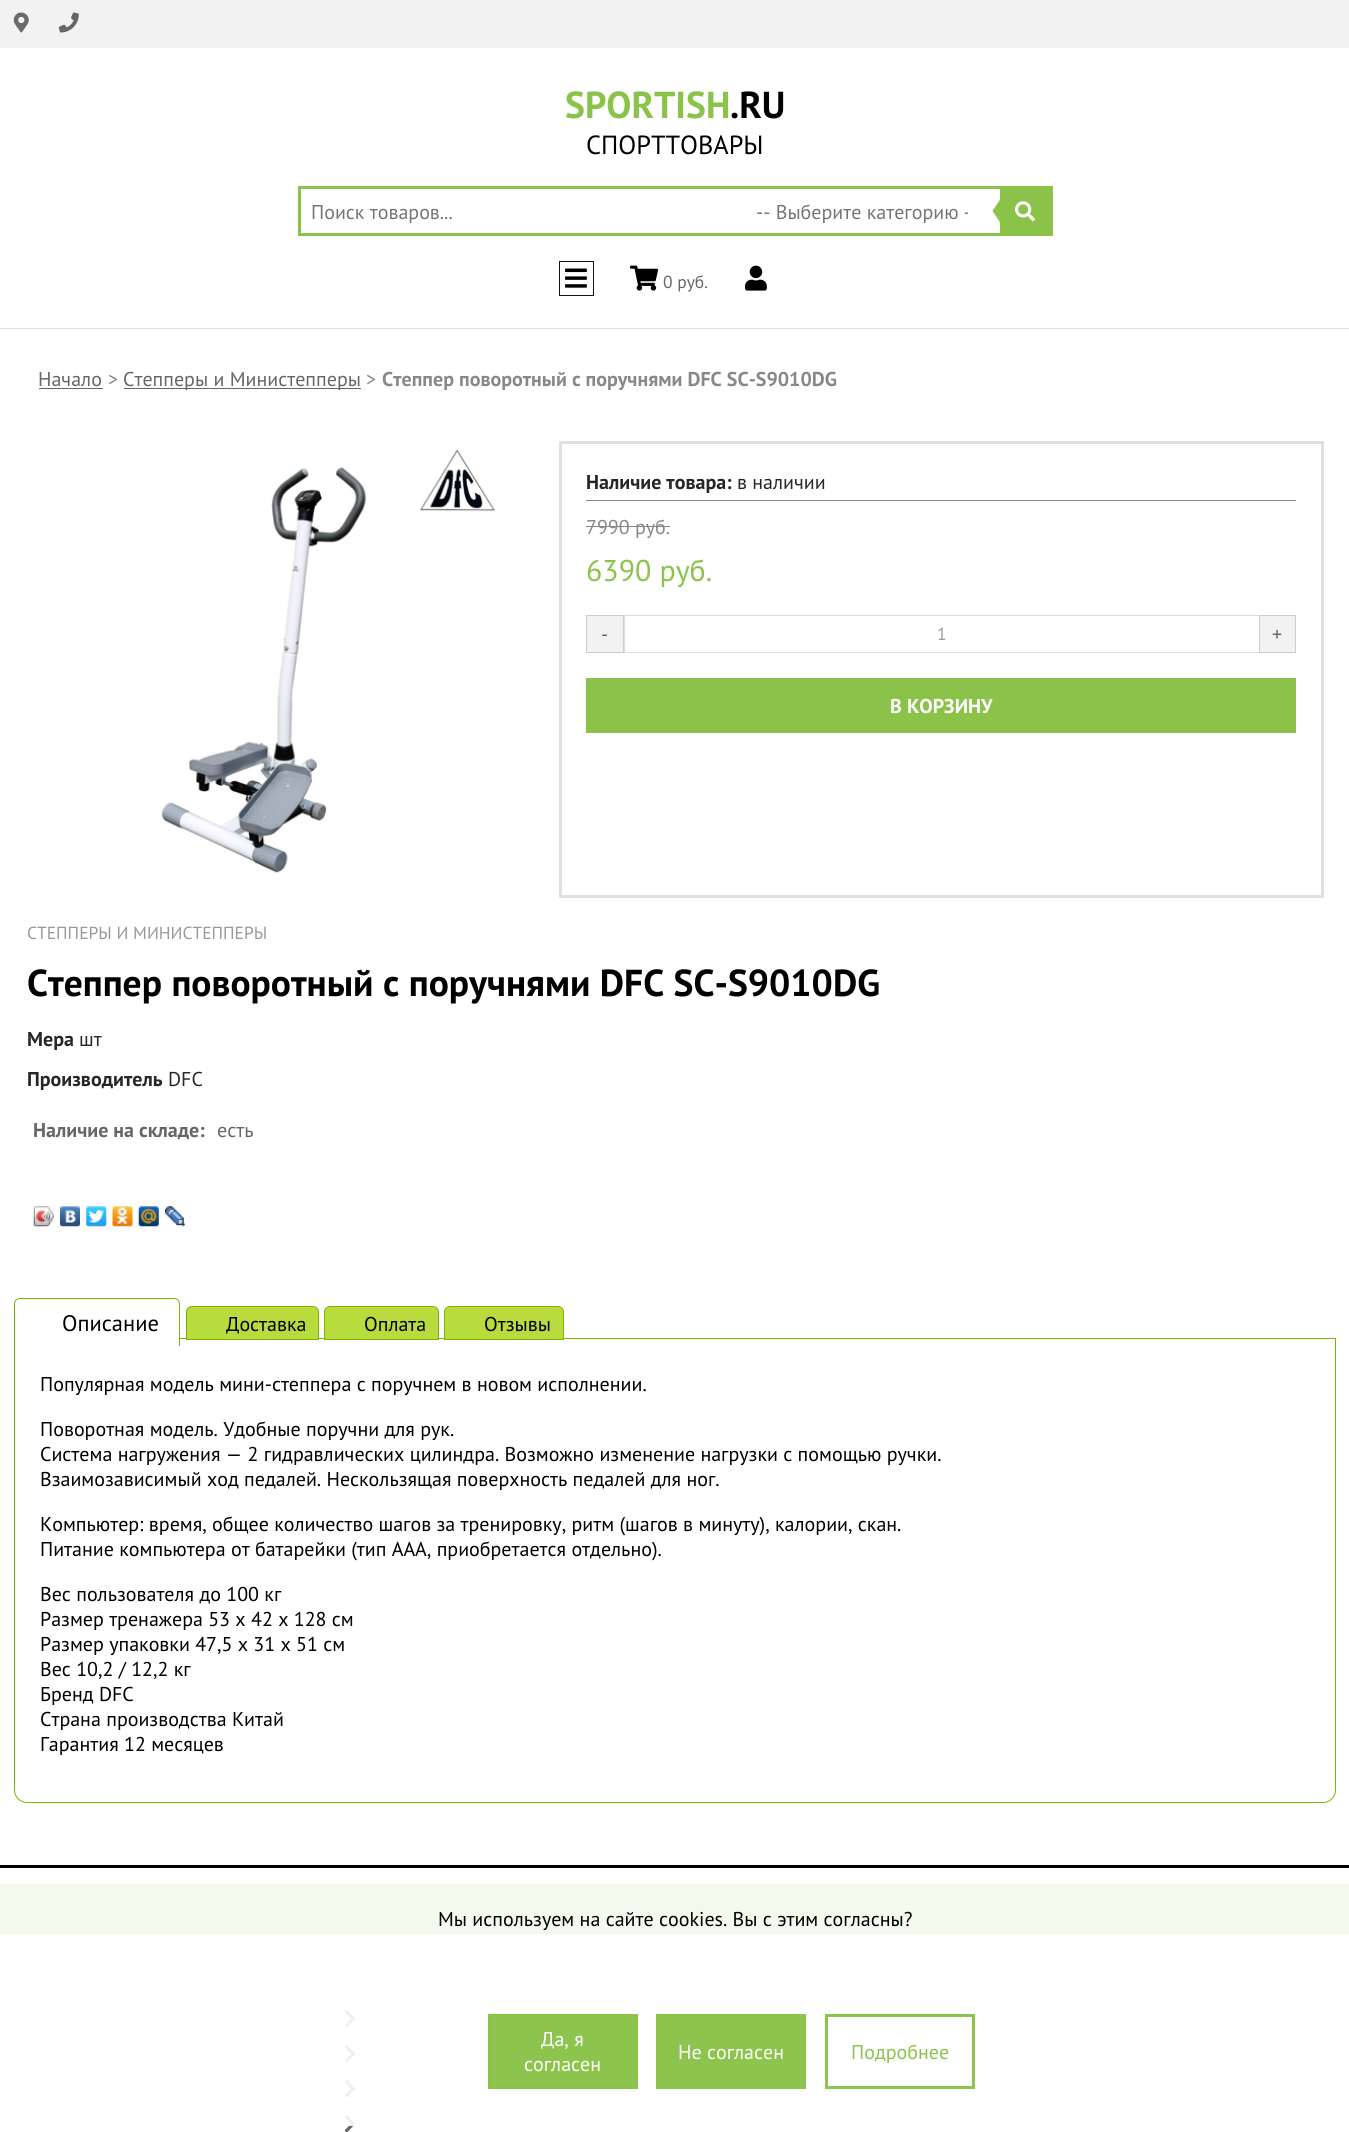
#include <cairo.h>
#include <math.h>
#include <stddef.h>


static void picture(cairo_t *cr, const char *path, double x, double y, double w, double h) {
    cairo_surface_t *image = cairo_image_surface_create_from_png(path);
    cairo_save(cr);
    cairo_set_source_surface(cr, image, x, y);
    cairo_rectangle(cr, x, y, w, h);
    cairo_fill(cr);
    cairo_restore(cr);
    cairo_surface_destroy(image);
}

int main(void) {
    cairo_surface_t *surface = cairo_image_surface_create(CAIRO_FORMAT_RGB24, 1349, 2132);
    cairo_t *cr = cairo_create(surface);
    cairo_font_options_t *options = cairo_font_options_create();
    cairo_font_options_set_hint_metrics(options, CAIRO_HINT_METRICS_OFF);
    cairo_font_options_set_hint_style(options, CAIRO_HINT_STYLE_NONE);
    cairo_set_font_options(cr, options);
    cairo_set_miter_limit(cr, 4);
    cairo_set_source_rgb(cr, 1, 1, 1);
    cairo_paint(cr);
    cairo_set_source_rgb(cr, 0.949, 0.949, 0.949);
    cairo_rectangle(cr, 0, 0, 1349, 48);
    cairo_fill(cr);
    picture(cr, "img1.png", 13, 12, 16, 21);
    picture(cr, "img2.png", 58, 12, 21, 21);
    cairo_set_source_rgb(cr, 0.878, 0.878, 0.878);
    cairo_rectangle(cr, 0, 328, 1349, 1);
    cairo_fill(cr);
    cairo_select_font_face(cr, "PT Sans", CAIRO_FONT_SLANT_NORMAL, CAIRO_FONT_WEIGHT_BOLD);
    cairo_set_font_size(cr, 37.5);
    cairo_set_source_rgb(cr, 0.545, 0.765, 0.29);
    cairo_move_to(cr, 565, 118);
    cairo_show_text(cr, "SPORTISH");
    cairo_set_source_rgb(cr, 0, 0, 0);
    cairo_move_to(cr, 730, 118);
    cairo_show_text(cr, ".RU");
    cairo_select_font_face(cr, "PT Sans", CAIRO_FONT_SLANT_NORMAL, CAIRO_FONT_WEIGHT_NORMAL);
    cairo_set_font_size(cr, 26.25);
    cairo_move_to(cr, 586, 154);
    cairo_show_text(cr, "СПОРТТОВАРЫ");
    cairo_rectangle(cr, 299.5, 187.5, 752, 47);
    cairo_set_source_rgb(cr, 0.545, 0.765, 0.29);
    cairo_set_line_width(cr, 3);
    cairo_stroke(cr);
    cairo_set_font_size(cr, 20);
    cairo_set_source_rgb(cr, 0.459, 0.459, 0.459);
    cairo_move_to(cr, 311, 219);
    cairo_show_text(cr, "Поиск товаров...");
    cairo_save(cr);
    cairo_rectangle(cr, 756, 199, 212, 25);
    cairo_clip(cr);
    cairo_move_to(cr, 756, 219);
    cairo_show_text(cr, "-- Выберите категорию -");
    cairo_restore(cr);
    cairo_set_source_rgb(cr, 0.545, 0.765, 0.29);
    cairo_rectangle(cr, 1000, 189, 50, 44);
    cairo_fill(cr);
    cairo_new_path(cr);
    cairo_move_to(cr, 1002.5, 196);
    cairo_line_to(cr, 1002.5, 226);
    cairo_line_to(cr, 992.5, 211);
    cairo_close_path(cr);
    cairo_fill(cr);
    picture(cr, "img3.png", 1015, 201, 20, 21);
    cairo_rectangle(cr, 559.5, 261.5, 34, 34);
    cairo_set_source_rgb(cr, 0.067, 0.067, 0.067);
    cairo_set_line_width(cr, 1);
    cairo_stroke(cr);
    picture(cr, "img4.png", 565, 268, 22, 20);
    picture(cr, "img5.png", 630, 265, 29, 26);
    cairo_set_font_size(cr, 17.5);
    cairo_set_source_rgb(cr, 0.4, 0.4, 0.4);
    cairo_move_to(cr, 663, 288);
    cairo_show_text(cr, "0 руб.");
    picture(cr, "img6.png", 745, 265, 22, 26);
    cairo_set_font_size(cr, 20);
    cairo_move_to(cr, 38, 386);
    cairo_show_text(cr, "Начало");
    cairo_rectangle(cr, 39, 388, 64, 1);
    cairo_fill(cr);
    cairo_set_source_rgb(cr, 0.533, 0.533, 0.533);
    cairo_move_to(cr, 108, 386);
    cairo_show_text(cr, ">");
    cairo_set_source_rgb(cr, 0.4, 0.4, 0.4);
    cairo_rectangle(cr, 124, 388, 237, 1);
    cairo_fill(cr);
    cairo_move_to(cr, 123, 386);
    cairo_show_text(cr, "Степперы и Министепперы");
    cairo_set_source_rgb(cr, 0.533, 0.533, 0.533);
    cairo_move_to(cr, 366, 386);
    cairo_show_text(cr, ">");
    cairo_select_font_face(cr, "PT Sans", CAIRO_FONT_SLANT_NORMAL, CAIRO_FONT_WEIGHT_BOLD);
    cairo_move_to(cr, 382, 386);
    cairo_show_text(cr, "Степпер поворотный с поручнями DFC SC-S9010DG");
    picture(cr, "img7.png", 161, 449, 334, 424);
    cairo_rectangle(cr, 560.5, 442.5, 762, 454);
    cairo_set_source_rgb(cr, 0.878, 0.878, 0.878);
    cairo_set_line_width(cr, 3);
    cairo_stroke(cr);
    cairo_set_source_rgb(cr, 0.533, 0.533, 0.533);
    cairo_rectangle(cr, 586, 500, 710, 1);
    cairo_fill(cr);
    cairo_set_source_rgb(cr, 0.153, 0.153, 0.153);
    cairo_move_to(cr, 586, 489);
    cairo_show_text(cr, "Наличие товара:");
    cairo_select_font_face(cr, "PT Sans", CAIRO_FONT_SLANT_NORMAL, CAIRO_FONT_WEIGHT_NORMAL);
    cairo_move_to(cr, 737, 489);
    cairo_show_text(cr, "в наличии");
    cairo_set_source_rgb(cr, 0.533, 0.533, 0.533);
    cairo_move_to(cr, 586, 534);
    cairo_show_text(cr, "7990 руб.");
    cairo_rectangle(cr, 586, 526, 84, 1);
    cairo_fill(cr);
    cairo_set_font_size(cr, 30);
    cairo_set_source_rgb(cr, 0.545, 0.765, 0.29);
    cairo_move_to(cr, 586, 581);
    cairo_show_text(cr, "6390 руб.");
    cairo_set_source_rgb(cr, 0.949, 0.949, 0.949);
    cairo_rectangle(cr, 586.5, 615.5, 37, 37);
    cairo_fill_preserve(cr);
    cairo_set_source_rgb(cr, 0.8, 0.8, 0.8);
    cairo_set_line_width(cr, 1);
    cairo_stroke(cr);
    cairo_set_font_size(cr, 20);
    cairo_set_source_rgb(cr, 0.4, 0.4, 0.4);
    cairo_move_to(cr, 601, 641);
    cairo_show_text(cr, "-");
    cairo_rectangle(cr, 624.5, 615.5, 636, 37);
    cairo_set_source_rgb(cr, 0.867, 0.867, 0.867);
    cairo_stroke(cr);
    cairo_set_font_size(cr, 17.5);
    cairo_set_source_rgb(cr, 0.6, 0.6, 0.6);
    cairo_move_to(cr, 937, 640);
    cairo_show_text(cr, "1");
    cairo_set_source_rgb(cr, 0.949, 0.949, 0.949);
    cairo_rectangle(cr, 1259.5, 615.5, 36, 37);
    cairo_fill_preserve(cr);
    cairo_set_source_rgb(cr, 0.8, 0.8, 0.8);
    cairo_stroke(cr);
    cairo_set_font_size(cr, 20);
    cairo_set_source_rgb(cr, 0.4, 0.4, 0.4);
    cairo_move_to(cr, 1272, 641);
    cairo_show_text(cr, "+");
    cairo_set_source_rgb(cr, 0.545, 0.765, 0.29);
    cairo_rectangle(cr, 586, 678, 710, 55);
    cairo_fill(cr);
    cairo_select_font_face(cr, "PT Sans", CAIRO_FONT_SLANT_NORMAL, CAIRO_FONT_WEIGHT_BOLD);
    cairo_set_source_rgb(cr, 1, 1, 1);
    cairo_move_to(cr, 890, 713);
    cairo_show_text(cr, "В КОРЗИНУ");
    cairo_select_font_face(cr, "PT Sans", CAIRO_FONT_SLANT_NORMAL, CAIRO_FONT_WEIGHT_NORMAL);
    cairo_set_font_size(cr, 17.5);
    cairo_set_source_rgb(cr, 0.6, 0.6, 0.6);
    cairo_move_to(cr, 27, 939);
    cairo_show_text(cr, "СТЕППЕРЫ И МИНИСТЕППЕРЫ");
    cairo_select_font_face(cr, "PT Sans", CAIRO_FONT_SLANT_NORMAL, CAIRO_FONT_WEIGHT_BOLD);
    cairo_set_font_size(cr, 37.5);
    cairo_set_source_rgb(cr, 0, 0, 0);
    cairo_move_to(cr, 27, 996);
    cairo_show_text(cr, "Степпер поворотный с поручнями DFC SC-S9010DG");
    cairo_set_font_size(cr, 20);
    cairo_set_source_rgb(cr, 0.153, 0.153, 0.153);
    cairo_move_to(cr, 27, 1046);
    cairo_show_text(cr, "Мера");
    cairo_select_font_face(cr, "PT Sans", CAIRO_FONT_SLANT_NORMAL, CAIRO_FONT_WEIGHT_NORMAL);
    cairo_move_to(cr, 79, 1046);
    cairo_show_text(cr, "шт");
    cairo_select_font_face(cr, "PT Sans", CAIRO_FONT_SLANT_NORMAL, CAIRO_FONT_WEIGHT_BOLD);
    cairo_move_to(cr, 27, 1086);
    cairo_show_text(cr, "Производитель");
    cairo_select_font_face(cr, "PT Sans", CAIRO_FONT_SLANT_NORMAL, CAIRO_FONT_WEIGHT_NORMAL);
    cairo_move_to(cr, 168, 1086);
    cairo_show_text(cr, "DFC");
    cairo_select_font_face(cr, "PT Sans", CAIRO_FONT_SLANT_NORMAL, CAIRO_FONT_WEIGHT_BOLD);
    cairo_set_source_rgb(cr, 0.4, 0.4, 0.4);
    cairo_move_to(cr, 33, 1137);
    cairo_show_text(cr, "Наличие на складе:");
    cairo_select_font_face(cr, "PT Sans", CAIRO_FONT_SLANT_NORMAL, CAIRO_FONT_WEIGHT_NORMAL);
    cairo_move_to(cr, 217, 1137);
    cairo_show_text(cr, "есть");
    picture(cr, "img8.png", 33, 1206, 21, 21);
    picture(cr, "img9.png", 33, 1206, 21, 21);
    picture(cr, "img10.png", 60, 1206, 20, 21);
    picture(cr, "img11.png", 86, 1206, 21, 21);
    picture(cr, "img12.png", 112, 1206, 21, 21);
    picture(cr, "img13.png", 138, 1206, 21, 21);
    picture(cr, "img14.png", 165, 1206, 20, 21);
    cairo_new_path(cr);
    cairo_move_to(cr, 14.5, 1338.5);
    cairo_line_to(cr, 1335.5, 1338.5);
    cairo_line_to(cr, 1335.5, 1790);
    cairo_curve_to(cr, 1335.5, 1797, 1330, 1802.5, 1323, 1802.5);
    cairo_line_to(cr, 27, 1802.5);
    cairo_curve_to(cr, 20, 1802.5, 14.5, 1797, 14.5, 1790);
    cairo_close_path(cr);
    cairo_set_source_rgb(cr, 0.475, 0.714, 0);
    cairo_stroke(cr);
    cairo_set_source_rgb(cr, 1, 1, 1);
    cairo_new_path(cr);
    cairo_move_to(cr, 20, 1298);
    cairo_line_to(cr, 174, 1298);
    cairo_curve_to(cr, 177.5, 1298, 180, 1300.5, 180, 1304);
    cairo_line_to(cr, 180, 1346);
    cairo_line_to(cr, 14, 1346);
    cairo_line_to(cr, 14, 1304);
    cairo_curve_to(cr, 14, 1300.5, 16.5, 1298, 20, 1298);
    cairo_close_path(cr);
    cairo_fill(cr);
    cairo_set_source_rgb(cr, 0.475, 0.714, 0);
    cairo_set_fill_rule(cr, CAIRO_FILL_RULE_EVEN_ODD);
    cairo_new_path(cr);
    cairo_move_to(cr, 20, 1298);
    cairo_line_to(cr, 174, 1298);
    cairo_curve_to(cr, 177, 1298, 180, 1300, 180, 1304);
    cairo_line_to(cr, 180, 1346);
    cairo_line_to(cr, 14, 1346);
    cairo_line_to(cr, 14, 1304);
    cairo_curve_to(cr, 14, 1300, 17, 1298, 20, 1298);
    cairo_close_path(cr);
    cairo_move_to(cr, 20, 1299);
    cairo_line_to(cr, 174, 1299);
    cairo_curve_to(cr, 177, 1299, 179, 1301, 179, 1304);
    cairo_line_to(cr, 179, 1346);
    cairo_line_to(cr, 15, 1346);
    cairo_line_to(cr, 15, 1304);
    cairo_curve_to(cr, 15, 1301, 17, 1299, 20, 1299);
    cairo_close_path(cr);
    cairo_fill(cr);
    cairo_set_font_size(cr, 22.5);
    cairo_set_source_rgb(cr, 0, 0, 0);
    cairo_move_to(cr, 62, 1331);
    cairo_show_text(cr, "Описание");
    cairo_set_source_rgb(cr, 0.722, 0.863, 0.239);
    cairo_new_path(cr);
    cairo_move_to(cr, 192, 1306.5);
    cairo_line_to(cr, 313, 1306.5);
    cairo_curve_to(cr, 316, 1306.5, 318.5, 1309, 318.5, 1312);
    cairo_line_to(cr, 318.5, 1339.5);
    cairo_line_to(cr, 186.5, 1339.5);
    cairo_line_to(cr, 186.5, 1312);
    cairo_curve_to(cr, 186.5, 1309, 189, 1306.5, 192, 1306.5);
    cairo_close_path(cr);
    cairo_fill_preserve(cr);
    cairo_set_source_rgb(cr, 0.475, 0.714, 0);
    cairo_stroke(cr);
    cairo_set_font_size(cr, 20);
    cairo_set_source_rgb(cr, 0, 0, 0);
    cairo_move_to(cr, 226, 1331);
    cairo_show_text(cr, "Доставка");
    cairo_set_source_rgb(cr, 0.722, 0.863, 0.239);
    cairo_new_path(cr);
    cairo_move_to(cr, 330, 1306.5);
    cairo_line_to(cr, 433, 1306.5);
    cairo_curve_to(cr, 436, 1306.5, 438.5, 1309, 438.5, 1312);
    cairo_line_to(cr, 438.5, 1339.5);
    cairo_line_to(cr, 324.5, 1339.5);
    cairo_line_to(cr, 324.5, 1312);
    cairo_curve_to(cr, 324.5, 1309, 327, 1306.5, 330, 1306.5);
    cairo_close_path(cr);
    cairo_fill_preserve(cr);
    cairo_set_source_rgb(cr, 0.475, 0.714, 0);
    cairo_stroke(cr);
    cairo_set_source_rgb(cr, 0, 0, 0);
    cairo_move_to(cr, 364, 1331);
    cairo_show_text(cr, "Оплата");
    cairo_set_source_rgb(cr, 0.722, 0.863, 0.239);
    cairo_new_path(cr);
    cairo_move_to(cr, 450, 1306.5);
    cairo_line_to(cr, 558, 1306.5);
    cairo_curve_to(cr, 561, 1306.5, 563.5, 1309, 563.5, 1312);
    cairo_line_to(cr, 563.5, 1339.5);
    cairo_line_to(cr, 444.5, 1339.5);
    cairo_line_to(cr, 444.5, 1312);
    cairo_curve_to(cr, 444.5, 1309, 447, 1306.5, 450, 1306.5);
    cairo_close_path(cr);
    cairo_fill_preserve(cr);
    cairo_set_source_rgb(cr, 0.475, 0.714, 0);
    cairo_stroke(cr);
    cairo_set_source_rgb(cr, 0, 0, 0);
    cairo_move_to(cr, 484, 1331);
    cairo_show_text(cr, "Отзывы");
    cairo_move_to(cr, 40, 1391);
    cairo_show_text(cr, "Популярная модель мини-степпера с поручнем в новом исполнении.");
    cairo_move_to(cr, 40, 1436);
    cairo_show_text(cr, "Поворотная модель. Удобные поручни для рук.");
    cairo_move_to(cr, 40, 1461);
    cairo_show_text(cr, "Система нагружения — 2 гидравлических цилиндра. Возможно изменение нагрузки с помощью ручки.");
    cairo_move_to(cr, 40, 1486);
    cairo_show_text(cr, "Взаимозависимый ход педалей. Нескользящая поверхность педалей для ног.");
    cairo_move_to(cr, 40, 1531);
    cairo_show_text(cr, "Компьютер: время, общее количество шагов за тренировку, ритм (шагов в минуту), калории, скан.");
    cairo_move_to(cr, 40, 1556);
    cairo_show_text(cr, "Питание компьютера от батарейки (тип ААА, приобретается отдельно).");
    cairo_move_to(cr, 40, 1601);
    cairo_show_text(cr, "Вес пользователя до 100 кг");
    cairo_move_to(cr, 40, 1626);
    cairo_show_text(cr, "Размер тренажера 53 х 42 х 128 см");
    cairo_move_to(cr, 40, 1651);
    cairo_show_text(cr, "Размер упаковки 47,5 х 31 х 51 см");
    cairo_move_to(cr, 40, 1676);
    cairo_show_text(cr, "Вес 10,2 / 12,2 кг");
    cairo_move_to(cr, 40, 1701);
    cairo_show_text(cr, "Бренд DFC");
    cairo_move_to(cr, 40, 1726);
    cairo_show_text(cr, "Страна производства Китай");
    cairo_move_to(cr, 40, 1751);
    cairo_show_text(cr, "Гарантия 12 месяцев");
    cairo_set_source_rgb(cr, 0.545, 0.765, 0.29);
    cairo_rectangle(cr, 0, 1884, 1349, 50);
    cairo_fill(cr);
    picture(cr, "img15.png", 344, 2010, 12, 18);
    picture(cr, "img15.png", 344, 2045, 12, 18);
    picture(cr, "img15.png", 344, 2080, 12, 18);
    picture(cr, "img16.png", 344, 2115, 12, 17);
    cairo_set_source_rgba(cr, 1, 1, 1, 0.9);
    cairo_rectangle(cr, 0, 1884, 1349, 242);
    cairo_fill(cr);
    cairo_set_source_rgb(cr, 0, 0, 0);
    cairo_rectangle(cr, 0, 1865, 1349, 3);
    cairo_fill(cr);
    cairo_move_to(cr, 438, 1926);
    cairo_show_text(cr, "Мы используем на сайте cookies. Вы с этим согласны?");
    cairo_set_source_rgba(cr, 0.545, 0.765, 0.29, 0.98);
    cairo_rectangle(cr, 489.5, 2015.5, 147, 72);
    cairo_fill_preserve(cr);
    cairo_set_source_rgb(cr, 0.545, 0.765, 0.29);
    cairo_set_line_width(cr, 3);
    cairo_stroke(cr);
    cairo_set_source_rgb(cr, 1, 1, 1);
    cairo_move_to(cr, 541, 2046);
    cairo_show_text(cr, "Да, я");
    cairo_move_to(cr, 524, 2071);
    cairo_show_text(cr, "согласен");
    cairo_set_source_rgba(cr, 0.545, 0.765, 0.29, 0.98);
    cairo_rectangle(cr, 656, 2014, 150, 75);
    cairo_fill(cr);
    cairo_set_source_rgb(cr, 1, 1, 1);
    cairo_move_to(cr, 678, 2059);
    cairo_show_text(cr, "Не согласен");
    cairo_rectangle(cr, 826.5, 2015.5, 147, 72);
    cairo_set_source_rgb(cr, 0.553, 0.769, 0.306);
    cairo_stroke(cr);
    cairo_set_source_rgb(cr, 0.545, 0.765, 0.29);
    cairo_move_to(cr, 851, 2059);
    cairo_show_text(cr, "Подробнее");
    cairo_surface_write_to_png(surface, "page.png");
    cairo_font_options_destroy(options);
    cairo_destroy(cr);
    cairo_surface_destroy(surface);
    return 0;
}
